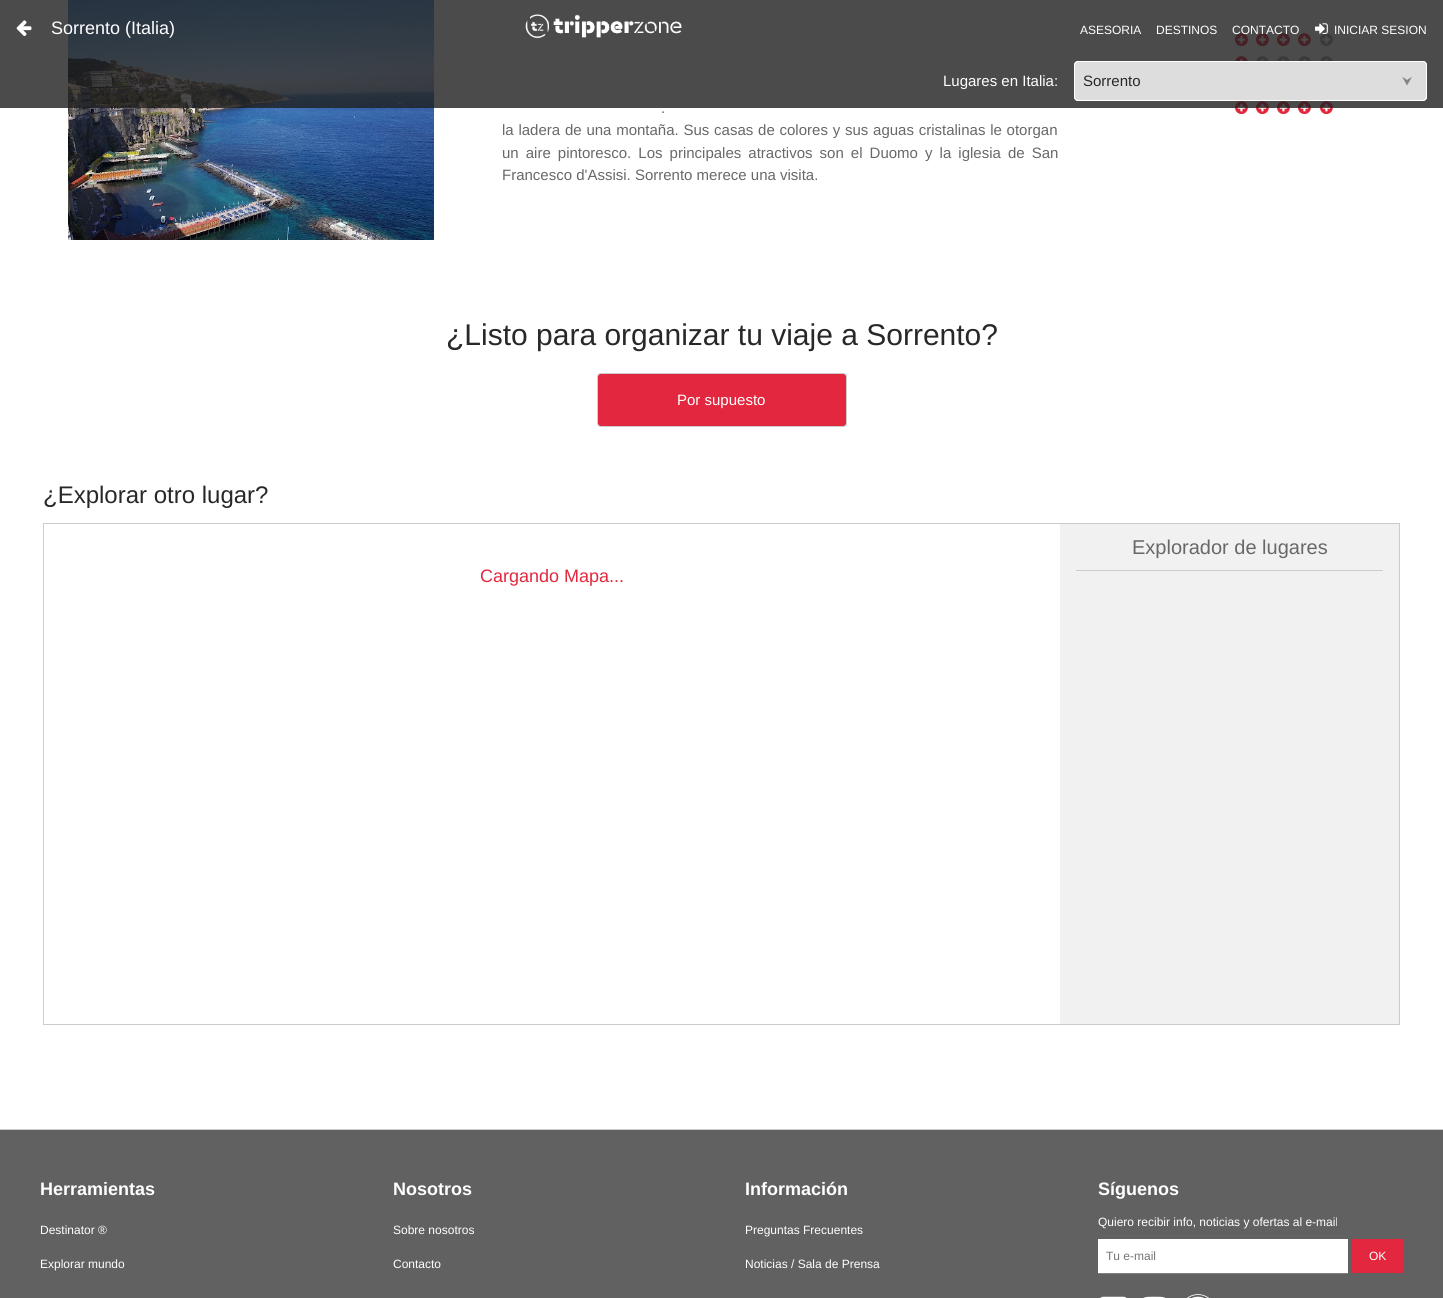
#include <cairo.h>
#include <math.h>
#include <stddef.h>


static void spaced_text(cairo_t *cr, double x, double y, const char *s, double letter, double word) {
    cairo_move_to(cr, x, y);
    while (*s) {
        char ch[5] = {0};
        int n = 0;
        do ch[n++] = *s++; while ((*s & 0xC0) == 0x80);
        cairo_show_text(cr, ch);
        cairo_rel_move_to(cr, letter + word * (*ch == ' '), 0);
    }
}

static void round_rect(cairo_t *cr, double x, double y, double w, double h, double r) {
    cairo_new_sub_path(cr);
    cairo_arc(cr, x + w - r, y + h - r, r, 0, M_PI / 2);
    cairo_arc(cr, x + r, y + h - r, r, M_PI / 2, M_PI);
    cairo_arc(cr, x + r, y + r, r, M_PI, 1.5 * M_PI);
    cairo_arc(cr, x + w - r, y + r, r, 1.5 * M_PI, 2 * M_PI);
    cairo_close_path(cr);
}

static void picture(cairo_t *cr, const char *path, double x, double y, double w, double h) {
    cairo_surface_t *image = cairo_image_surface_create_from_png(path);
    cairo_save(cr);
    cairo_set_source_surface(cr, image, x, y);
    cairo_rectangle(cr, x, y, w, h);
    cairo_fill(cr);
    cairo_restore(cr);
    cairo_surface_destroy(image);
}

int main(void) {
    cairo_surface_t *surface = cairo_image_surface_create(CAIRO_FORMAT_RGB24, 1443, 1298);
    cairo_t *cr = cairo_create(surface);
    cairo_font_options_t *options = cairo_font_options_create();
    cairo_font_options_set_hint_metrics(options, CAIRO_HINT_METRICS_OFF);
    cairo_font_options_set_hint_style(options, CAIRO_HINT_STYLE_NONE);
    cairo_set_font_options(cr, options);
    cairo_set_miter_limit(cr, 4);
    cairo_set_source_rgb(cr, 1, 1, 1);
    cairo_paint(cr);
    picture(cr, "img5.png", 68, 0, 366, 240);
    picture(cr, "img6.png", 1235, 33, 13, 14);
    picture(cr, "img6.png", 1256, 33, 13, 14);
    picture(cr, "img6.png", 1277, 33, 13, 14);
    picture(cr, "img6.png", 1298, 33, 13, 14);
    picture(cr, "img7.png", 1320, 33, 13, 13);
    picture(cr, "img8.png", 1235, 56, 13, 5);
    picture(cr, "img9.png", 1256, 56, 13, 5);
    picture(cr, "img9.png", 1277, 56, 13, 5);
    picture(cr, "img9.png", 1298, 56, 13, 5);
    picture(cr, "img9.png", 1320, 56, 13, 5);
    picture(cr, "img6.png", 1235, 101, 13, 14);
    picture(cr, "img6.png", 1256, 101, 13, 14);
    picture(cr, "img6.png", 1277, 101, 13, 14);
    picture(cr, "img6.png", 1298, 101, 13, 14);
    picture(cr, "img6.png", 1320, 101, 13, 14);
    cairo_set_source_rgba(cr, 0.118, 0.118, 0.118, 0.8);
    cairo_rectangle(cr, 0, 0, 1443, 108);
    cairo_fill(cr);
    picture(cr, "img1.png", 16, 20, 16, 16);
    cairo_select_font_face(cr, "Liberation Sans", CAIRO_FONT_SLANT_NORMAL, CAIRO_FONT_WEIGHT_NORMAL);
    cairo_set_font_size(cr, 18);
    cairo_set_source_rgb(cr, 1, 1, 1);
    cairo_move_to(cr, 51, 34);
    cairo_show_text(cr, "Sorrento (Italia)");
    picture(cr, "img2.png", 525, 14, 157, 25);
    cairo_set_font_size(cr, 12);
    cairo_move_to(cr, 1080, 34);
    cairo_show_text(cr, "ASESORIA");
    cairo_move_to(cr, 1156, 34);
    cairo_show_text(cr, "DESTINOS");
    cairo_move_to(cr, 1232, 34);
    cairo_show_text(cr, "CONTACTO");
    picture(cr, "img3.png", 1315, 23, 13, 11);
    cairo_move_to(cr, 1334, 34);
    cairo_show_text(cr, "INICIAR SESION");
    cairo_set_font_size(cr, 15);
    cairo_move_to(cr, 943, 86);
    cairo_show_text(cr, "Lugares en Italia:");
    picture(cr, "img4.png", 1074, 61, 353, 40);
    round_rect(cr, 1074.5, 61.5, 352, 39, 3.5);
    cairo_set_line_width(cr, 1);
    cairo_stroke(cr);
    cairo_set_source_rgb(cr, 0.157, 0.157, 0.157);
    cairo_move_to(cr, 1083, 86);
    cairo_show_text(cr, "Sorrento");
    cairo_set_source_rgb(cr, 0.408, 0.408, 0.408);
    spaced_text(cr, 661, 113, ".", 0, 1);
    spaced_text(cr, 502, 135, "la ladera de una montaña. Sus casas de colores y sus aguas cristalinas le otorgan", 0, 0.6);
    spaced_text(cr, 502, 158, "un aire pintoresco. Los principales atractivos son el Duomo y la iglesia de San", 0, 2.9);
    cairo_move_to(cr, 502, 180);
    cairo_show_text(cr, "Francesco d'Assisi. Sorrento merece una visita.");
    cairo_set_font_size(cr, 30);
    cairo_set_source_rgb(cr, 0.157, 0.157, 0.157);
    cairo_move_to(cr, 446, 345);
    cairo_show_text(cr, "¿Listo para organizar tu viaje a Sorrento?");
    cairo_set_source_rgb(cr, 0.89, 0.153, 0.243);
    round_rect(cr, 597.5, 373.5, 249, 53, 3.5);
    cairo_fill_preserve(cr);
    cairo_set_source_rgb(cr, 0.8, 0.8, 0.8);
    cairo_stroke(cr);
    cairo_set_font_size(cr, 15);
    cairo_set_source_rgb(cr, 1, 1, 1);
    cairo_move_to(cr, 677, 405);
    cairo_show_text(cr, "Por supuesto");
    cairo_set_font_size(cr, 24);
    cairo_set_source_rgb(cr, 0.157, 0.157, 0.157);
    cairo_move_to(cr, 43, 503);
    cairo_show_text(cr, "¿Explorar otro lugar?");
    cairo_rectangle(cr, 43.5, 523.5, 1356, 501);
    cairo_set_source_rgb(cr, 0.8, 0.8, 0.8);
    cairo_stroke(cr);
    cairo_set_source_rgb(cr, 0.945, 0.945, 0.945);
    cairo_rectangle(cr, 1060, 524, 339, 500);
    cairo_fill(cr);
    cairo_set_source_rgb(cr, 0.8, 0.8, 0.8);
    cairo_rectangle(cr, 1076, 570, 307, 1);
    cairo_fill(cr);
    cairo_set_font_size(cr, 20);
    cairo_set_source_rgb(cr, 0.408, 0.408, 0.408);
    cairo_move_to(cr, 1132, 554);
    cairo_show_text(cr, "Explorador de lugares");
    cairo_set_font_size(cr, 18);
    cairo_set_source_rgb(cr, 0.89, 0.153, 0.243);
    cairo_move_to(cr, 480, 582);
    cairo_show_text(cr, "Cargando Mapa...");
    cairo_set_source_rgb(cr, 0.38, 0.38, 0.38);
    cairo_rectangle(cr, 0, 1130, 1443, 168);
    cairo_fill(cr);
    cairo_set_source_rgb(cr, 0.8, 0.8, 0.8);
    cairo_rectangle(cr, 0, 1129, 1443, 1);
    cairo_fill(cr);
    cairo_select_font_face(cr, "Liberation Sans", CAIRO_FONT_SLANT_NORMAL, CAIRO_FONT_WEIGHT_BOLD);
    cairo_set_source_rgb(cr, 1, 1, 1);
    cairo_move_to(cr, 40, 1195);
    cairo_show_text(cr, "Herramientas");
    cairo_select_font_face(cr, "Liberation Sans", CAIRO_FONT_SLANT_NORMAL, CAIRO_FONT_WEIGHT_NORMAL);
    cairo_set_font_size(cr, 12);
    cairo_move_to(cr, 40, 1234);
    cairo_show_text(cr, "Destinator ®");
    cairo_move_to(cr, 40, 1268);
    cairo_show_text(cr, "Explorar mundo");
    cairo_select_font_face(cr, "Liberation Sans", CAIRO_FONT_SLANT_NORMAL, CAIRO_FONT_WEIGHT_BOLD);
    cairo_set_font_size(cr, 18);
    cairo_move_to(cr, 393, 1195);
    cairo_show_text(cr, "Nosotros");
    cairo_select_font_face(cr, "Liberation Sans", CAIRO_FONT_SLANT_NORMAL, CAIRO_FONT_WEIGHT_NORMAL);
    cairo_set_font_size(cr, 12);
    cairo_move_to(cr, 393, 1234);
    cairo_show_text(cr, "Sobre nosotros");
    cairo_move_to(cr, 393, 1268);
    cairo_show_text(cr, "Contacto");
    cairo_select_font_face(cr, "Liberation Sans", CAIRO_FONT_SLANT_NORMAL, CAIRO_FONT_WEIGHT_BOLD);
    cairo_set_font_size(cr, 18);
    cairo_move_to(cr, 745, 1195);
    cairo_show_text(cr, "Información");
    cairo_select_font_face(cr, "Liberation Sans", CAIRO_FONT_SLANT_NORMAL, CAIRO_FONT_WEIGHT_NORMAL);
    cairo_set_font_size(cr, 12);
    cairo_move_to(cr, 745, 1234);
    cairo_show_text(cr, "Preguntas Frecuentes");
    cairo_move_to(cr, 745, 1268);
    cairo_show_text(cr, "Noticias / Sala de Prensa");
    cairo_select_font_face(cr, "Liberation Sans", CAIRO_FONT_SLANT_NORMAL, CAIRO_FONT_WEIGHT_BOLD);
    cairo_set_font_size(cr, 18);
    cairo_move_to(cr, 1098, 1195);
    cairo_show_text(cr, "Síguenos");
    cairo_select_font_face(cr, "Liberation Sans", CAIRO_FONT_SLANT_NORMAL, CAIRO_FONT_WEIGHT_NORMAL);
    cairo_set_font_size(cr, 12);
    cairo_move_to(cr, 1098, 1226);
    cairo_show_text(cr, "Quiero recibir info, noticias y ofertas al e-mail");
    cairo_rectangle(cr, 1098, 1239, 250, 34);
    cairo_fill(cr);
    cairo_set_source_rgb(cr, 0.502, 0.502, 0.502);
    cairo_rectangle(cr, 1098, 1273, 250, 1);
    cairo_fill(cr);
    cairo_set_source_rgb(cr, 0.459, 0.459, 0.459);
    cairo_move_to(cr, 1106, 1260);
    cairo_show_text(cr, "Tu e-mail");
    cairo_set_source_rgb(cr, 0.89, 0.153, 0.243);
    cairo_rectangle(cr, 1352, 1239, 51, 34);
    cairo_fill(cr);
    cairo_set_source_rgb(cr, 1, 1, 1);
    cairo_move_to(cr, 1369, 1260);
    cairo_show_text(cr, "OK");
    picture(cr, "img10.png", 1100, 1296, 27, 2);
    picture(cr, "img11.png", 1143, 1296, 23, 2);
    picture(cr, "img12.png", 1187, 1294, 22, 4);
    cairo_surface_write_to_png(surface, "page.png");
    cairo_font_options_destroy(options);
    cairo_destroy(cr);
    cairo_surface_destroy(surface);
    return 0;
}
